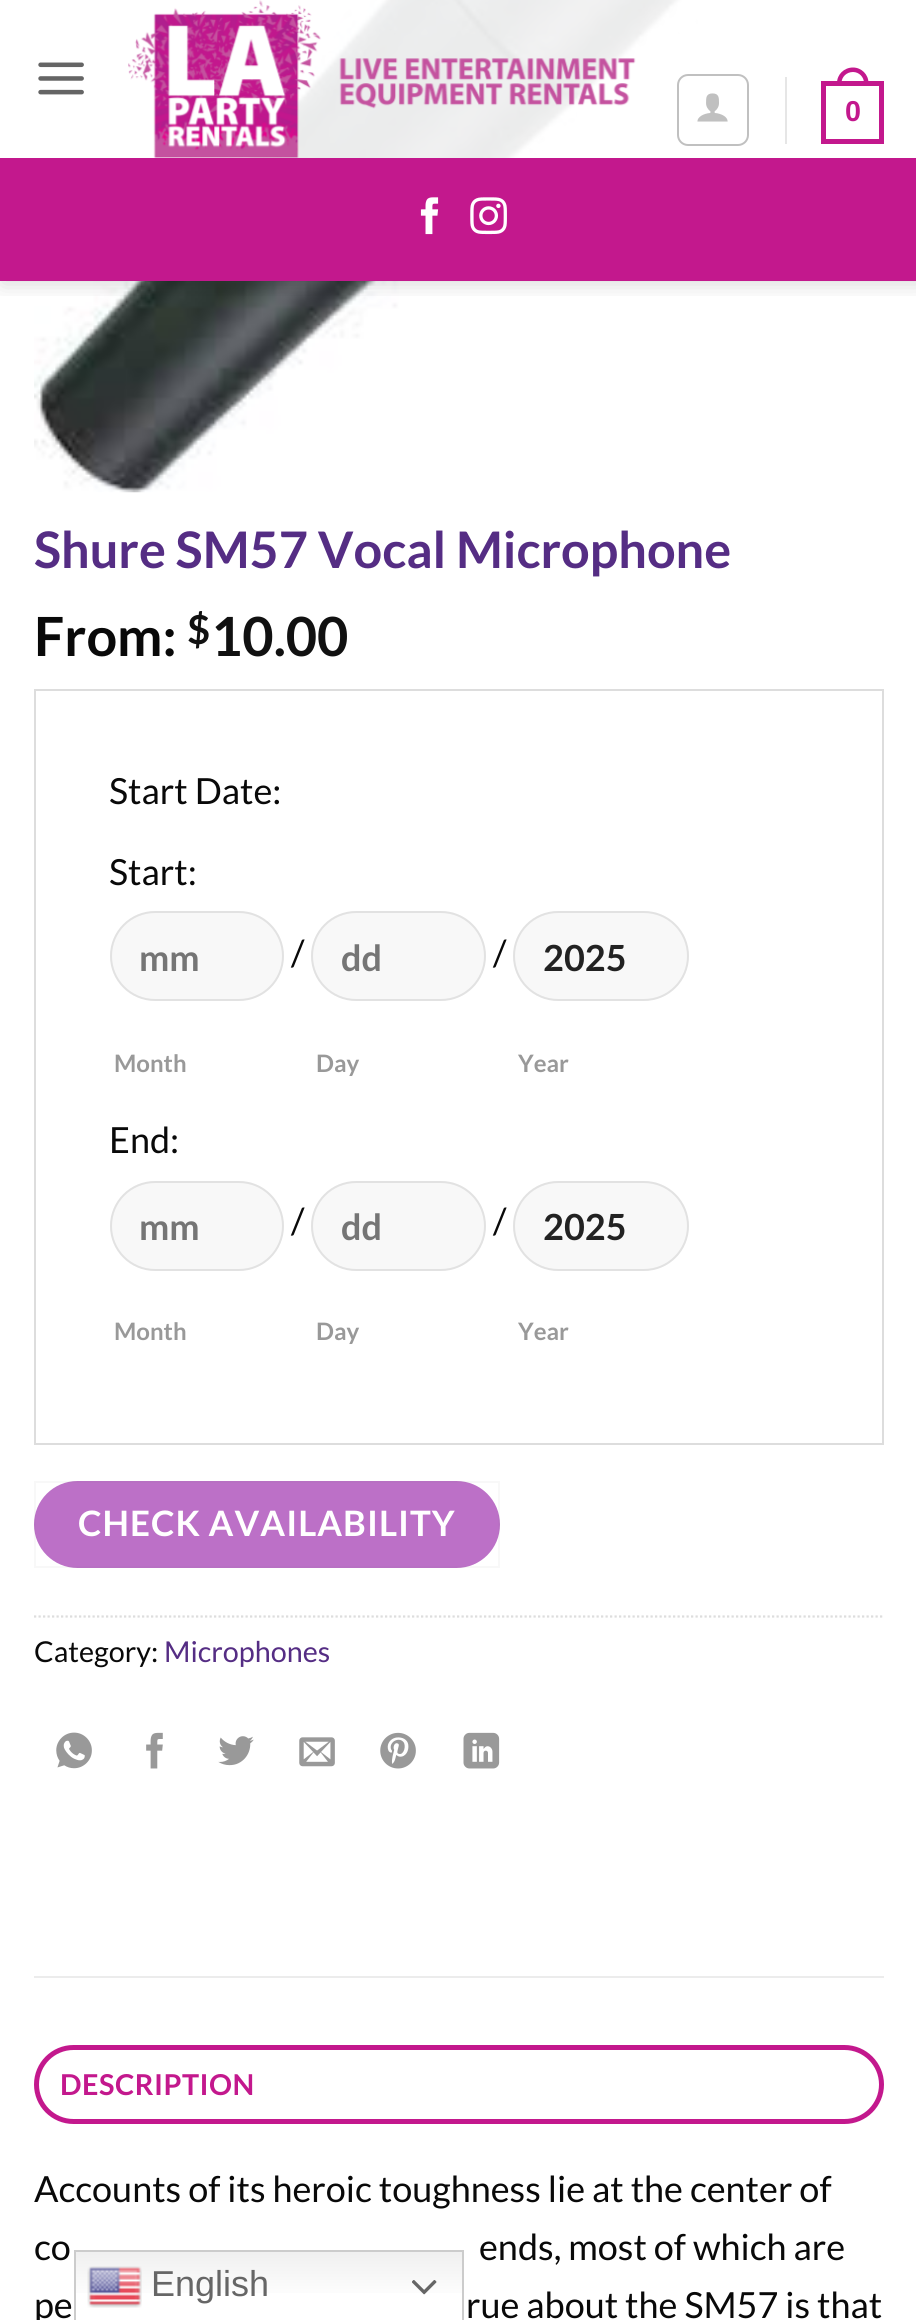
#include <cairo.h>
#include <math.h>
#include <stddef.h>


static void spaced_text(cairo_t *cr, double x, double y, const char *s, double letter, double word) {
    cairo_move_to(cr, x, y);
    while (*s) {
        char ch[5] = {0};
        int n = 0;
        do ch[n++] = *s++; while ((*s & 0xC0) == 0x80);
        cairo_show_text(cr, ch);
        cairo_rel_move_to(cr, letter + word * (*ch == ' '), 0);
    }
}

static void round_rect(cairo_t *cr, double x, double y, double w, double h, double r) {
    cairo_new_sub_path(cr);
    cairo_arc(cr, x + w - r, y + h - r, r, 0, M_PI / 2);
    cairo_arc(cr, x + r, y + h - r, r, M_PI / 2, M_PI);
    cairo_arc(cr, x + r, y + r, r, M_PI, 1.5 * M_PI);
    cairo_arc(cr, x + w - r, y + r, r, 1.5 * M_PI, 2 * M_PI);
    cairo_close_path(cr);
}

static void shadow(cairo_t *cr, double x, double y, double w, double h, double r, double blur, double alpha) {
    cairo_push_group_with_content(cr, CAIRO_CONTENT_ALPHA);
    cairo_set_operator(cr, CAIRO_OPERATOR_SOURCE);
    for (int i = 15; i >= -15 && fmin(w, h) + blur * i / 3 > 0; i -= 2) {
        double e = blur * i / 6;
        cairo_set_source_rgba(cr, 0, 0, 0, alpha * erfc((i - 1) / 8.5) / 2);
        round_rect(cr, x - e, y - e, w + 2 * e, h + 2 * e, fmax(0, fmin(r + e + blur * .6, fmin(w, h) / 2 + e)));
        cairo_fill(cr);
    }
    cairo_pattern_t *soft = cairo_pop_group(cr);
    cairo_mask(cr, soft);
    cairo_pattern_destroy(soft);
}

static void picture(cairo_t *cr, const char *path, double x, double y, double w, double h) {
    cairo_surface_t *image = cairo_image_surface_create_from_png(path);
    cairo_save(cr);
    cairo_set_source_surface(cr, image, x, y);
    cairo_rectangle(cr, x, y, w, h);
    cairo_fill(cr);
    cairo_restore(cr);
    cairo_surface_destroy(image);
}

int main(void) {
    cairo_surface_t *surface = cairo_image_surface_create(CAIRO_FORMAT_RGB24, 916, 2320);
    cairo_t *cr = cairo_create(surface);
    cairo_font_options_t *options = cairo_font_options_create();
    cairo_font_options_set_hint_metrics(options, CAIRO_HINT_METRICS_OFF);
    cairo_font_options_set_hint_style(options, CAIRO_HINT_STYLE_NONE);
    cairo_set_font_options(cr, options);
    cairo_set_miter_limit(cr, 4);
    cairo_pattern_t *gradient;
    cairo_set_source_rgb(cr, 1, 1, 1);
    cairo_paint(cr);
    picture(cr, "img6.png", 34, 0, 665, 493);
    cairo_save(cr);
    cairo_rectangle(cr, 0, 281, 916, 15);
    cairo_clip(cr);
    cairo_set_source_rgb(cr, 0, 0, 0);
    shadow(cr, 2, 2, 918, 282, 0, 11, 0.15);
    cairo_restore(cr);
    cairo_set_source_rgba(cr, 1, 1, 1, 0.9);
    cairo_rectangle(cr, 226, 0, 473, 158);
    cairo_fill(cr);
    picture(cr, "img1.png", 38, 62, 46, 33);
    picture(cr, "img2.png", 128, 0, 508, 158);
    round_rect(cr, 678, 75, 70, 70, 10);
    cairo_set_source_rgb(cr, 0.753, 0.753, 0.753);
    cairo_stroke(cr);
    picture(cr, "img3.png", 697, 93, 31, 29);
    cairo_set_source_rgb(cr, 0.902, 0.902, 0.902);
    cairo_rectangle(cr, 785, 77, 2, 67);
    cairo_fill(cr);
    cairo_rectangle(cr, 823.5, 83.5, 58, 58);
    cairo_set_source_rgb(cr, 0.765, 0.094, 0.553);
    cairo_set_line_width(cr, 5);
    cairo_stroke(cr);
    cairo_set_fill_rule(cr, CAIRO_FILL_RULE_EVEN_ODD);
    cairo_new_path(cr);
    cairo_move_to(cr, 853, 67.5);
    cairo_curve_to(cr, 861.5, 67.5, 868.5, 74.5, 868.5, 83);
    cairo_line_to(cr, 868.5, 85.5);
    cairo_line_to(cr, 837, 85.5);
    cairo_line_to(cr, 837, 83);
    cairo_curve_to(cr, 837, 74.5, 844, 67.5, 853, 67.5);
    cairo_close_path(cr);
    cairo_move_to(cr, 853, 72);
    cairo_curve_to(cr, 859, 72, 864, 77, 864, 83);
    cairo_line_to(cr, 864, 85.5);
    cairo_line_to(cr, 841.5, 85.5);
    cairo_line_to(cr, 841.5, 83);
    cairo_curve_to(cr, 841.5, 77, 846.5, 72, 853, 72);
    cairo_close_path(cr);
    cairo_fill(cr);
    cairo_select_font_face(cr, "Liberation Sans", CAIRO_FONT_SLANT_NORMAL, CAIRO_FONT_WEIGHT_BOLD);
    cairo_set_font_size(cr, 28.75);
    cairo_move_to(cr, 845, 121);
    cairo_show_text(cr, "0");
    cairo_rectangle(cr, 0, 158, 916, 123);
    cairo_fill(cr);
    picture(cr, "img4.png", 420, 197, 19, 38);
    picture(cr, "img5.png", 470, 197, 37, 38);
    cairo_select_font_face(cr, "Lato", CAIRO_FONT_SLANT_NORMAL, CAIRO_FONT_WEIGHT_BOLD);
    cairo_set_font_size(cr, 50.4);
    cairo_set_source_rgb(cr, 0.333, 0.176, 0.518);
    cairo_move_to(cr, 34, 568);
    cairo_show_text(cr, "Shure SM57 Vocal Microphone");
    cairo_set_font_size(cr, 54);
    cairo_set_source_rgb(cr, 0.039, 0.039, 0.039);
    cairo_move_to(cr, 34, 656);
    cairo_show_text(cr, "From:");
    cairo_set_font_size(cr, 40);
    cairo_set_source_rgb(cr, 0.067, 0.067, 0.067);
    cairo_move_to(cr, 187, 644);
    cairo_show_text(cr, "$");
    cairo_set_font_size(cr, 54);
    cairo_move_to(cr, 211, 656);
    cairo_show_text(cr, "10.00");
    cairo_rectangle(cr, 35, 690, 848, 754);
    cairo_set_source_rgb(cr, 0.867, 0.867, 0.867);
    cairo_set_line_width(cr, 2);
    cairo_stroke(cr);
    cairo_select_font_face(cr, "Lato", CAIRO_FONT_SLANT_NORMAL, CAIRO_FONT_WEIGHT_NORMAL);
    cairo_set_font_size(cr, 36);
    cairo_set_source_rgb(cr, 0.039, 0.039, 0.039);
    cairo_move_to(cr, 109, 804);
    cairo_show_text(cr, "Start Date:");
    cairo_move_to(cr, 109, 885);
    cairo_show_text(cr, "Start:");
    cairo_set_source_rgb(cr, 0.969, 0.969, 0.969);
    round_rect(cr, 110, 911, 174, 90, 45);
    cairo_fill(cr);
    round_rect(cr, 111, 912, 172, 88, 44);
    cairo_set_source_rgba(cr, 0, 0, 0, 0.09);
    cairo_stroke(cr);
    cairo_select_font_face(cr, "Lato", CAIRO_FONT_SLANT_NORMAL, CAIRO_FONT_WEIGHT_BOLD);
    cairo_set_source_rgb(cr, 0.459, 0.459, 0.459);
    cairo_move_to(cr, 139, 971);
    cairo_show_text(cr, "mm");
    cairo_set_font_size(cr, 24);
    cairo_set_source_rgb(cr, 0.6, 0.6, 0.6);
    cairo_move_to(cr, 114, 1072);
    cairo_show_text(cr, "Month");
    cairo_select_font_face(cr, "Lato", CAIRO_FONT_SLANT_NORMAL, CAIRO_FONT_WEIGHT_NORMAL);
    cairo_set_font_size(cr, 36);
    cairo_set_source_rgb(cr, 0.039, 0.039, 0.039);
    cairo_move_to(cr, 291, 966);
    cairo_show_text(cr, "/");
    cairo_set_source_rgb(cr, 0.969, 0.969, 0.969);
    round_rect(cr, 311, 911, 175, 90, 45);
    cairo_fill(cr);
    round_rect(cr, 312, 912, 173, 88, 44);
    cairo_set_source_rgba(cr, 0, 0, 0, 0.09);
    cairo_stroke(cr);
    cairo_select_font_face(cr, "Lato", CAIRO_FONT_SLANT_NORMAL, CAIRO_FONT_WEIGHT_BOLD);
    cairo_set_source_rgb(cr, 0.459, 0.459, 0.459);
    cairo_move_to(cr, 341, 971);
    cairo_show_text(cr, "dd");
    cairo_set_font_size(cr, 24);
    cairo_set_source_rgb(cr, 0.6, 0.6, 0.6);
    cairo_move_to(cr, 316, 1072);
    cairo_show_text(cr, "Day");
    cairo_select_font_face(cr, "Lato", CAIRO_FONT_SLANT_NORMAL, CAIRO_FONT_WEIGHT_NORMAL);
    cairo_set_font_size(cr, 36);
    cairo_set_source_rgb(cr, 0.039, 0.039, 0.039);
    cairo_move_to(cr, 493, 966);
    cairo_show_text(cr, "/");
    cairo_set_source_rgb(cr, 0.969, 0.969, 0.969);
    round_rect(cr, 513, 911, 176, 90, 45);
    cairo_fill(cr);
    round_rect(cr, 514, 912, 174, 88, 44);
    cairo_set_source_rgba(cr, 0, 0, 0, 0.09);
    cairo_stroke(cr);
    cairo_select_font_face(cr, "Lato", CAIRO_FONT_SLANT_NORMAL, CAIRO_FONT_WEIGHT_BOLD);
    cairo_set_source_rgb(cr, 0.133, 0.133, 0.133);
    cairo_move_to(cr, 543, 971);
    cairo_show_text(cr, "2025");
    cairo_set_font_size(cr, 24);
    cairo_set_source_rgb(cr, 0.6, 0.6, 0.6);
    cairo_move_to(cr, 518, 1072);
    cairo_show_text(cr, "Year");
    cairo_select_font_face(cr, "Lato", CAIRO_FONT_SLANT_NORMAL, CAIRO_FONT_WEIGHT_NORMAL);
    cairo_set_font_size(cr, 36);
    cairo_set_source_rgb(cr, 0.039, 0.039, 0.039);
    cairo_move_to(cr, 109, 1153);
    cairo_show_text(cr, "End:");
    cairo_set_source_rgb(cr, 0.969, 0.969, 0.969);
    round_rect(cr, 110, 1181, 174, 90, 45);
    cairo_fill(cr);
    round_rect(cr, 111, 1182, 172, 88, 44);
    cairo_set_source_rgba(cr, 0, 0, 0, 0.09);
    cairo_stroke(cr);
    cairo_select_font_face(cr, "Lato", CAIRO_FONT_SLANT_NORMAL, CAIRO_FONT_WEIGHT_BOLD);
    cairo_set_source_rgb(cr, 0.459, 0.459, 0.459);
    cairo_move_to(cr, 139, 1240);
    cairo_show_text(cr, "mm");
    cairo_set_font_size(cr, 24);
    cairo_set_source_rgb(cr, 0.6, 0.6, 0.6);
    cairo_move_to(cr, 114, 1340);
    cairo_show_text(cr, "Month");
    cairo_select_font_face(cr, "Lato", CAIRO_FONT_SLANT_NORMAL, CAIRO_FONT_WEIGHT_NORMAL);
    cairo_set_font_size(cr, 36);
    cairo_set_source_rgb(cr, 0.039, 0.039, 0.039);
    cairo_move_to(cr, 291, 1234);
    cairo_show_text(cr, "/");
    cairo_set_source_rgb(cr, 0.969, 0.969, 0.969);
    round_rect(cr, 311, 1181, 175, 90, 45);
    cairo_fill(cr);
    round_rect(cr, 312, 1182, 173, 88, 44);
    cairo_set_source_rgba(cr, 0, 0, 0, 0.09);
    cairo_stroke(cr);
    cairo_select_font_face(cr, "Lato", CAIRO_FONT_SLANT_NORMAL, CAIRO_FONT_WEIGHT_BOLD);
    cairo_set_source_rgb(cr, 0.459, 0.459, 0.459);
    cairo_move_to(cr, 341, 1240);
    cairo_show_text(cr, "dd");
    cairo_set_font_size(cr, 24);
    cairo_set_source_rgb(cr, 0.6, 0.6, 0.6);
    cairo_move_to(cr, 316, 1340);
    cairo_show_text(cr, "Day");
    cairo_select_font_face(cr, "Lato", CAIRO_FONT_SLANT_NORMAL, CAIRO_FONT_WEIGHT_NORMAL);
    cairo_set_font_size(cr, 36);
    cairo_set_source_rgb(cr, 0.039, 0.039, 0.039);
    cairo_move_to(cr, 493, 1234);
    cairo_show_text(cr, "/");
    cairo_set_source_rgb(cr, 0.969, 0.969, 0.969);
    round_rect(cr, 513, 1181, 176, 90, 45);
    cairo_fill(cr);
    round_rect(cr, 514, 1182, 174, 88, 44);
    cairo_set_source_rgba(cr, 0, 0, 0, 0.09);
    cairo_stroke(cr);
    cairo_select_font_face(cr, "Lato", CAIRO_FONT_SLANT_NORMAL, CAIRO_FONT_WEIGHT_BOLD);
    cairo_set_source_rgb(cr, 0.133, 0.133, 0.133);
    cairo_move_to(cr, 543, 1240);
    cairo_show_text(cr, "2025");
    cairo_set_font_size(cr, 24);
    cairo_set_source_rgb(cr, 0.6, 0.6, 0.6);
    cairo_move_to(cr, 518, 1340);
    cairo_show_text(cr, "Year");
    cairo_set_source_rgb(cr, 0.737, 0.439, 0.78);
    round_rect(cr, 34, 1481, 466, 87, 43.5);
    cairo_fill(cr);
    cairo_rectangle(cr, 35, 1482, 464, 85);
    cairo_set_source_rgba(cr, 0.4, 0.4, 0.4, 0.05);
    cairo_stroke(cr);
    cairo_set_font_size(cr, 35);
    cairo_set_source_rgb(cr, 1, 1, 1);
    spaced_text(cr, 78, 1536, "CHECK AVAILABILITY", 1, 0);
    cairo_new_path(cr);
    cairo_move_to(cr, 34, 1616.5);
    cairo_line_to(cr, 884, 1616.5);
    cairo_set_source_rgb(cr, 0.867, 0.867, 0.867);
    cairo_set_line_width(cr, 2.2);
    cairo_set_dash(cr, (double[]){2.25, 2.25}, 2, 0);
    cairo_stroke(cr);
    cairo_select_font_face(cr, "Lato", CAIRO_FONT_SLANT_NORMAL, CAIRO_FONT_WEIGHT_NORMAL);
    cairo_set_font_size(cr, 28.75);
    cairo_set_source_rgb(cr, 0.039, 0.039, 0.039);
    cairo_move_to(cr, 34, 1662);
    cairo_show_text(cr, "Category:");
    cairo_set_source_rgb(cr, 0.333, 0.176, 0.518);
    cairo_move_to(cr, 164, 1662);
    cairo_show_text(cr, "Microphones");
    picture(cr, "img7.png", 56, 1732, 36, 37);
    picture(cr, "img8.png", 146, 1732, 17, 37);
    picture(cr, "img9.png", 218, 1736, 36, 30);
    picture(cr, "img10.png", 299, 1737, 36, 30);
    picture(cr, "img11.png", 380, 1732, 36, 37);
    picture(cr, "img12.png", 463, 1732, 37, 37);
    cairo_set_source_rgb(cr, 0.925, 0.925, 0.925);
    cairo_rectangle(cr, 34, 1976, 850, 2);
    cairo_fill(cr);
    round_rect(cr, 36.5, 2047.5, 845, 74, 37);
    cairo_set_source_rgb(cr, 0.765, 0.094, 0.553);
    cairo_set_line_width(cr, 5);
    cairo_set_dash(cr, NULL, 0, 0);
    cairo_stroke(cr);
    cairo_select_font_face(cr, "Lato", CAIRO_FONT_SLANT_NORMAL, CAIRO_FONT_WEIGHT_BOLD);
    spaced_text(cr, 60, 2095, "DESCRIPTION", 0.5, 0);
    cairo_select_font_face(cr, "Lato", CAIRO_FONT_SLANT_NORMAL, CAIRO_FONT_WEIGHT_NORMAL);
    cairo_set_font_size(cr, 36);
    cairo_set_source_rgb(cr, 0.039, 0.039, 0.039);
    cairo_move_to(cr, 34, 2202);
    cairo_show_text(cr, "Accounts of its heroic toughness lie at the center of");
    cairo_move_to(cr, 34, 2260);
    cairo_show_text(cr, "co");
    cairo_move_to(cr, 479, 2260);
    cairo_show_text(cr, "ends, most of which are");
    cairo_move_to(cr, 34, 2318);
    cairo_show_text(cr, "pe");
    cairo_move_to(cr, 466, 2318);
    cairo_show_text(cr, "rue about the SM57 is that");
    gradient = cairo_pattern_create_linear(269, 2250, 269, 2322);
    cairo_pattern_add_color_stop_rgba(gradient, 0, 0.937, 0.937, 0.937, 1);
    cairo_pattern_add_color_stop_rgba(gradient, 0.7, 1, 1, 1, 1);
    cairo_set_source(cr, gradient);
    cairo_pattern_destroy(gradient);
    cairo_rectangle(cr, 76, 2252, 386, 41);
    cairo_fill(cr);
    cairo_rectangle(cr, 75, 2251, 388, 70);
    cairo_set_source_rgb(cr, 0.8, 0.8, 0.8);
    cairo_set_line_width(cr, 2);
    cairo_stroke(cr);
    picture(cr, "img13.png", 87, 2266, 55, 42);
    cairo_select_font_face(cr, "Liberation Sans", CAIRO_FONT_SLANT_NORMAL, CAIRO_FONT_WEIGHT_NORMAL);
    cairo_set_source_rgb(cr, 0.4, 0.4, 0.4);
    cairo_move_to(cr, 151, 2296);
    cairo_show_text(cr, "English");
    picture(cr, "img14.png", 412, 2280, 25, 15);
    cairo_surface_write_to_png(surface, "page.png");
    cairo_font_options_destroy(options);
    cairo_destroy(cr);
    cairo_surface_destroy(surface);
    return 0;
}
